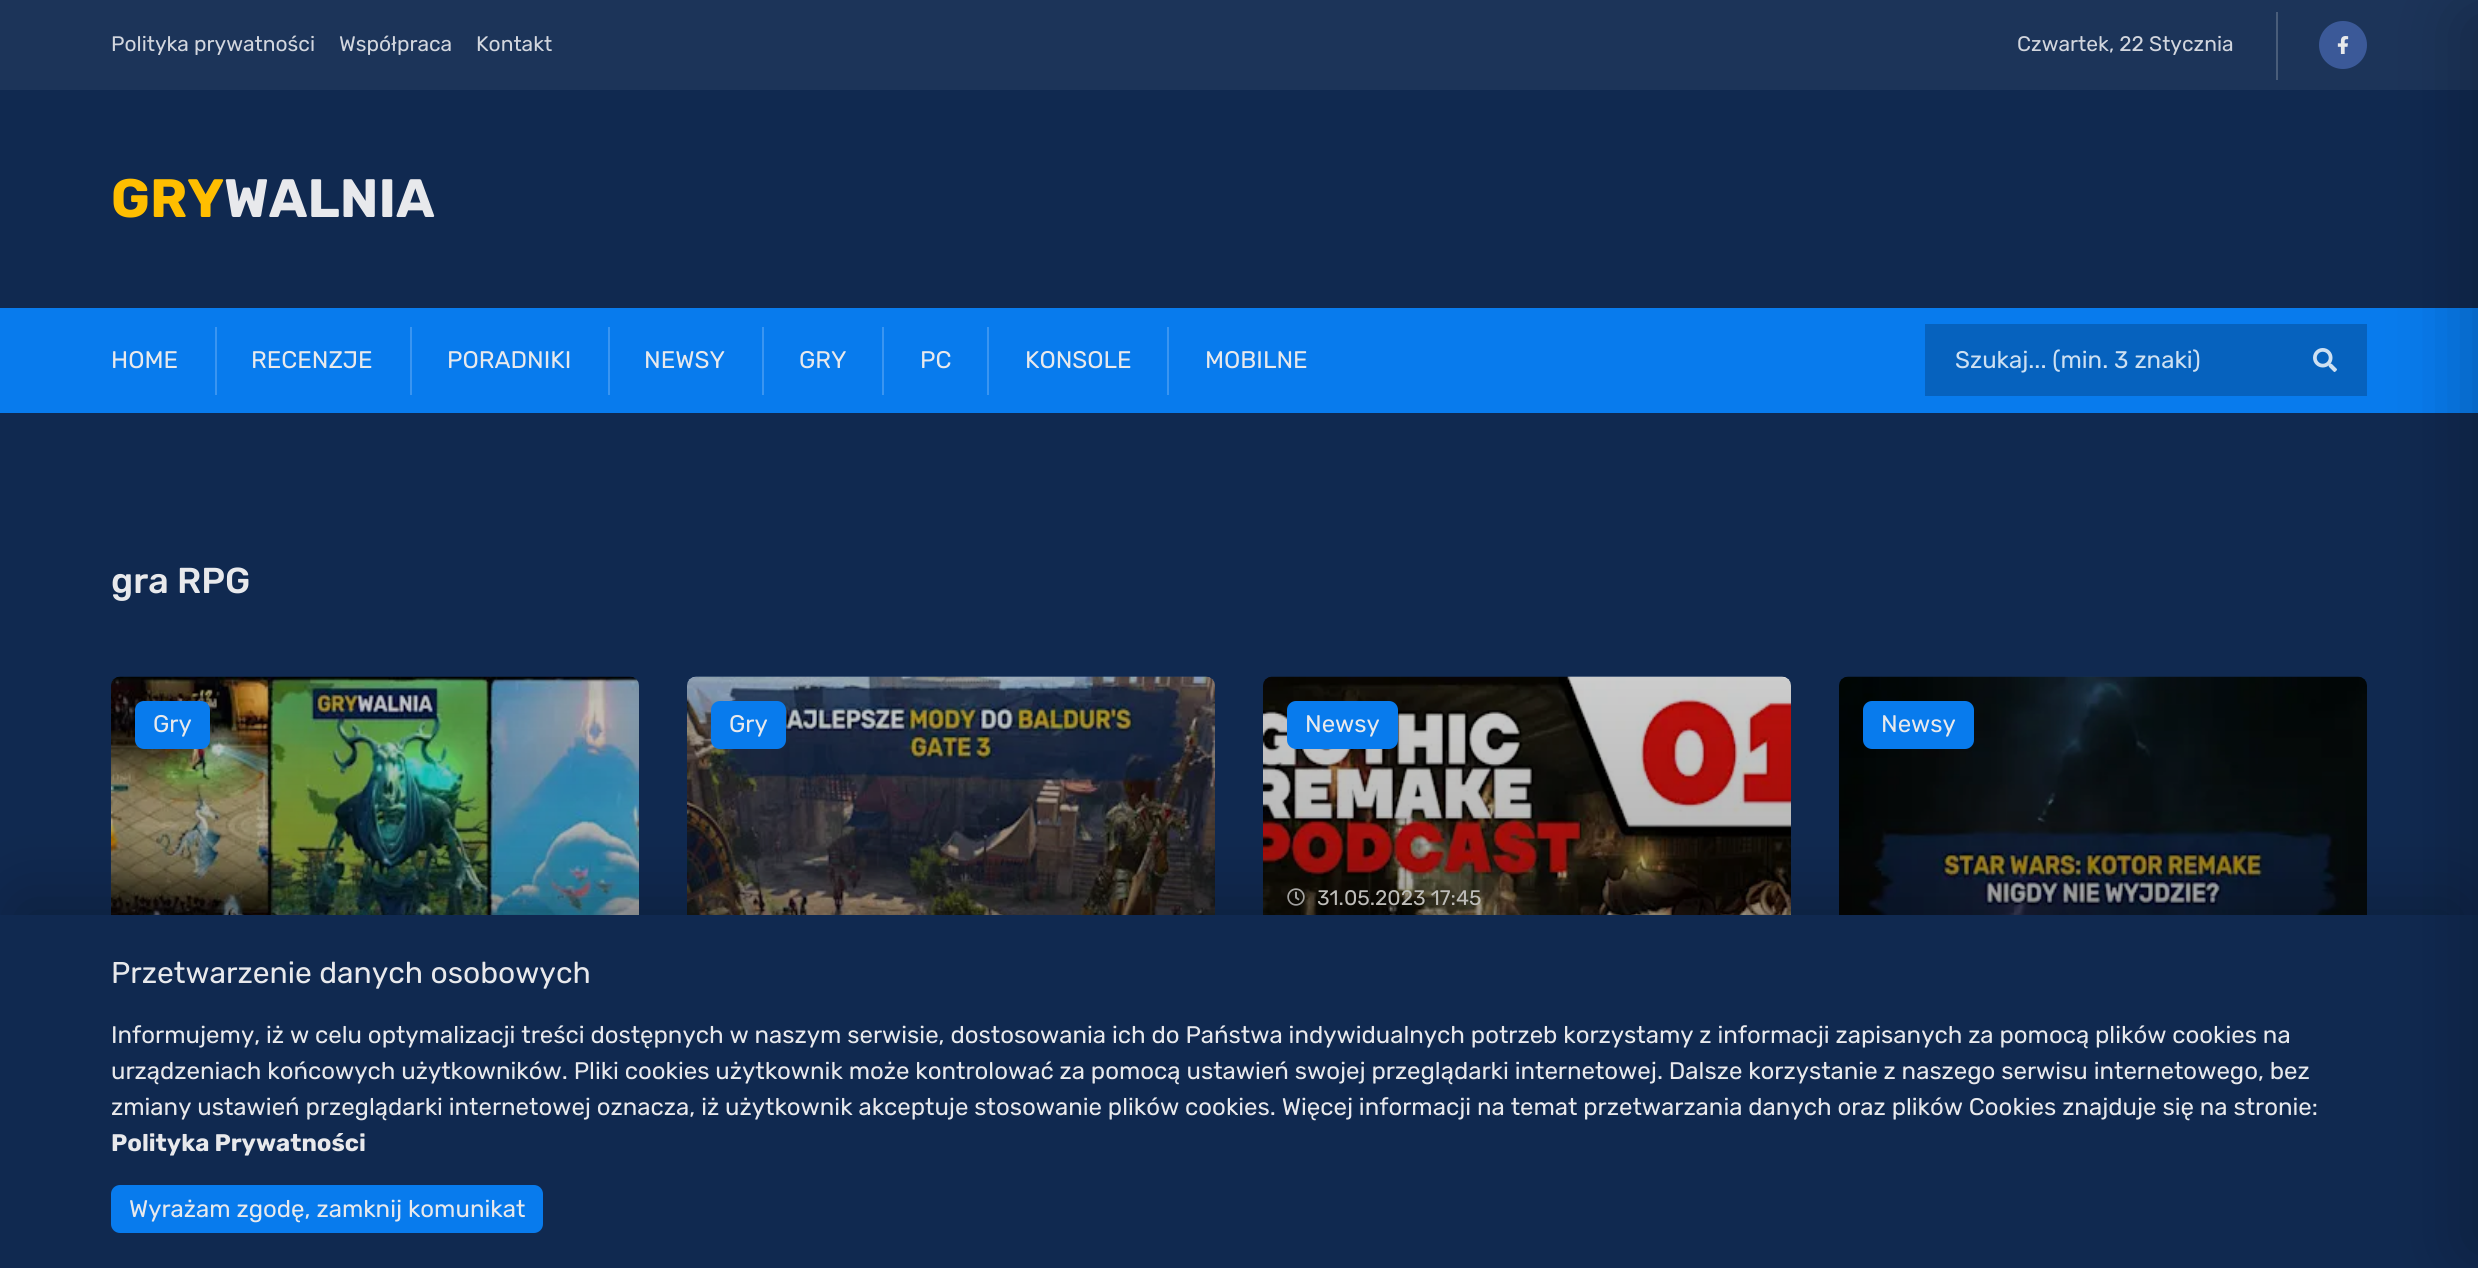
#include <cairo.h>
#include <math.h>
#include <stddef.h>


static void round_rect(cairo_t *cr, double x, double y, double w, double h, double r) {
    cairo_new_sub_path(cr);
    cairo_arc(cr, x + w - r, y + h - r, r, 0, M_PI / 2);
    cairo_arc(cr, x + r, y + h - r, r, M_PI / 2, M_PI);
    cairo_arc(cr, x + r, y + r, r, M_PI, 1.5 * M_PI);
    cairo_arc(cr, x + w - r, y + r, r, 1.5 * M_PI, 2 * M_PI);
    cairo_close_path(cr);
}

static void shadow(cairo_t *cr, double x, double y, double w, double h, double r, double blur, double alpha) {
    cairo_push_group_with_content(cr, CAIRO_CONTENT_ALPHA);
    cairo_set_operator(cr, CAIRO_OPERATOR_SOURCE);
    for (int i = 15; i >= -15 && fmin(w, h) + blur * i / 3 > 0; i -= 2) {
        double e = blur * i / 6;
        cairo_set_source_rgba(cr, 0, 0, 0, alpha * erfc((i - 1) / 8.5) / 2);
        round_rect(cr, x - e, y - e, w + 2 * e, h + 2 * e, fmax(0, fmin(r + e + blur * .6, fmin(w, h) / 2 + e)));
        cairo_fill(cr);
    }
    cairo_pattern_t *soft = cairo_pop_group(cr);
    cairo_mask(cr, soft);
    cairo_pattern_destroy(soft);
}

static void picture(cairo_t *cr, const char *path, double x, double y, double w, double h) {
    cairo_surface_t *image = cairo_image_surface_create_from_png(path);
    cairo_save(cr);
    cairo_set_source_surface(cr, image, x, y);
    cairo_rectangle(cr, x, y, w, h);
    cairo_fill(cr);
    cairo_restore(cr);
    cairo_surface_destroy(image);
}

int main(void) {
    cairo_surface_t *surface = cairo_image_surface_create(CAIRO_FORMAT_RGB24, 2478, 1268);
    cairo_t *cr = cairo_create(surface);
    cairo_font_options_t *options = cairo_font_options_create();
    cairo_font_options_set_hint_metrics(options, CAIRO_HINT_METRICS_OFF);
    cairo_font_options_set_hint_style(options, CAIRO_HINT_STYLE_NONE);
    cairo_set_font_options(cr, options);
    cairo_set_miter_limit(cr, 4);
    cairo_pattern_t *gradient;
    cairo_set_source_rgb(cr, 0.11, 0.204, 0.349);
    cairo_paint(cr);
    cairo_select_font_face(cr, "Rubik", CAIRO_FONT_SLANT_NORMAL, CAIRO_FONT_WEIGHT_NORMAL);
    cairo_set_font_size(cr, 21);
    cairo_set_source_rgb(cr, 0.824, 0.839, 0.871);
    cairo_move_to(cr, 111, 51);
    cairo_show_text(cr, "Polityka prywatności");
    cairo_move_to(cr, 339, 51);
    cairo_show_text(cr, "Współpraca");
    cairo_move_to(cr, 476, 51);
    cairo_show_text(cr, "Kontakt");
    cairo_set_source_rgb(cr, 0.286, 0.365, 0.478);
    cairo_rectangle(cr, 2276, 12, 2, 68);
    cairo_fill(cr);
    cairo_set_source_rgb(cr, 0.824, 0.839, 0.871);
    cairo_move_to(cr, 2017, 51);
    cairo_show_text(cr, "Czwartek, 22 Stycznia");
    cairo_set_source_rgb(cr, 0.231, 0.349, 0.596);
    cairo_new_path(cr);
    cairo_arc(cr, 2343, 45, 24, 0, 2 * M_PI);
    cairo_fill(cr);
    picture(cr, "img1.png", 2337, 36, 12, 18);
    cairo_set_source_rgb(cr, 0.063, 0.161, 0.314);
    cairo_rectangle(cr, 0, 90, 2478, 218);
    cairo_fill(cr);
    cairo_select_font_face(cr, "Rubik", CAIRO_FONT_SLANT_NORMAL, CAIRO_FONT_WEIGHT_BOLD);
    cairo_set_font_size(cr, 54);
    cairo_set_source_rgb(cr, 1, 0.745, 0);
    cairo_move_to(cr, 111, 217);
    cairo_show_text(cr, "GRY");
    cairo_set_source_rgb(cr, 0.91, 0.914, 0.922);
    cairo_move_to(cr, 224, 217);
    cairo_show_text(cr, "WALNIA");
    cairo_set_source_rgb(cr, 0.035, 0.482, 0.929);
    cairo_rectangle(cr, 0, 308, 2478, 105);
    cairo_fill(cr);
    cairo_set_source_rgb(cr, 0.027, 0.384, 0.745);
    cairo_rectangle(cr, 1925, 324, 442, 72);
    cairo_fill(cr);
    cairo_set_source_rgb(cr, 0.063, 0.161, 0.314);
    cairo_rectangle(cr, 0, 413, 2478, 502);
    cairo_fill(cr);
    picture(cr, "img7.png", 1839, 676, 528, 239);
    gradient = cairo_pattern_create_linear(2103, 1082, 2103, 677);
    cairo_pattern_add_color_stop_rgba(gradient, 0, 0, 0, 0, 0.4);
    cairo_pattern_add_color_stop_rgba(gradient, 1, 0, 0, 0, 0.2);
    cairo_set_source(cr, gradient);
    cairo_pattern_destroy(gradient);
    round_rect(cr, 1839, 677, 528, 405, 9);
    cairo_fill(cr);
    picture(cr, "img3.png", 111, 676, 528, 239);
    gradient = cairo_pattern_create_linear(375, 1082, 375, 677);
    cairo_pattern_add_color_stop_rgba(gradient, 0, 0, 0, 0, 0.4);
    cairo_pattern_add_color_stop_rgba(gradient, 1, 0, 0, 0, 0.2);
    cairo_set_source(cr, gradient);
    cairo_pattern_destroy(gradient);
    round_rect(cr, 111, 677, 528, 405, 9);
    cairo_fill(cr);
    picture(cr, "img4.png", 687, 676, 528, 239);
    gradient = cairo_pattern_create_linear(951, 1082, 951, 677);
    cairo_pattern_add_color_stop_rgba(gradient, 0, 0, 0, 0, 0.4);
    cairo_pattern_add_color_stop_rgba(gradient, 1, 0, 0, 0, 0.2);
    cairo_set_source(cr, gradient);
    cairo_pattern_destroy(gradient);
    round_rect(cr, 687, 677, 528, 405, 9);
    cairo_fill(cr);
    picture(cr, "img5.png", 1263, 676, 528, 239);
    gradient = cairo_pattern_create_linear(1527, 1082, 1527, 677);
    cairo_pattern_add_color_stop_rgba(gradient, 0, 0, 0, 0, 0.4);
    cairo_pattern_add_color_stop_rgba(gradient, 1, 0, 0, 0, 0.2);
    cairo_set_source(cr, gradient);
    cairo_pattern_destroy(gradient);
    round_rect(cr, 1263, 677, 528, 405, 9);
    cairo_fill(cr);
    picture(cr, "img6.png", 1287, 888, 18, 18);
    cairo_set_source_rgb(cr, 0, 0, 0);
    shadow(cr, 18, 903, 2442, 318, 0, 37.5, 0.25);
    cairo_set_source_rgb(cr, 0.063, 0.161, 0.314);
    cairo_rectangle(cr, 0, 915, 2478, 353);
    cairo_fill(cr);
    cairo_set_source_rgb(cr, 0, 0, 0);
    shadow(cr, 2466, 18, 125, 1233, 0, 37.5, 0.25);
    cairo_set_source_rgb(cr, 0.227, 0.584, 0.945);
    cairo_rectangle(cr, 215, 327, 2, 68);
    cairo_fill(cr);
    cairo_select_font_face(cr, "Rubik", CAIRO_FONT_SLANT_NORMAL, CAIRO_FONT_WEIGHT_NORMAL);
    cairo_set_font_size(cr, 24);
    cairo_set_source_rgb(cr, 0.91, 0.914, 0.922);
    cairo_move_to(cr, 111, 368);
    cairo_show_text(cr, "HOME");
    cairo_set_source_rgb(cr, 0.227, 0.584, 0.945);
    cairo_rectangle(cr, 410, 327, 2, 68);
    cairo_fill(cr);
    cairo_set_source_rgb(cr, 0.91, 0.914, 0.922);
    cairo_move_to(cr, 251, 368);
    cairo_show_text(cr, "RECENZJE");
    cairo_set_source_rgb(cr, 0.227, 0.584, 0.945);
    cairo_rectangle(cr, 608, 327, 2, 68);
    cairo_fill(cr);
    cairo_set_source_rgb(cr, 0.91, 0.914, 0.922);
    cairo_move_to(cr, 447, 368);
    cairo_show_text(cr, "PORADNIKI");
    cairo_set_source_rgb(cr, 0.227, 0.584, 0.945);
    cairo_rectangle(cr, 762, 327, 2, 68);
    cairo_fill(cr);
    cairo_set_source_rgb(cr, 0.91, 0.914, 0.922);
    cairo_move_to(cr, 644, 368);
    cairo_show_text(cr, "NEWSY");
    cairo_set_source_rgb(cr, 0.227, 0.584, 0.945);
    cairo_rectangle(cr, 882, 327, 2, 68);
    cairo_fill(cr);
    cairo_set_source_rgb(cr, 0.91, 0.914, 0.922);
    cairo_move_to(cr, 799, 368);
    cairo_show_text(cr, "GRY");
    cairo_set_source_rgb(cr, 0.227, 0.584, 0.945);
    cairo_rectangle(cr, 987, 327, 2, 68);
    cairo_fill(cr);
    cairo_set_source_rgb(cr, 0.91, 0.914, 0.922);
    cairo_move_to(cr, 920, 368);
    cairo_show_text(cr, "PC");
    cairo_set_source_rgb(cr, 0.227, 0.584, 0.945);
    cairo_rectangle(cr, 1167, 327, 2, 68);
    cairo_fill(cr);
    cairo_set_source_rgb(cr, 0.91, 0.914, 0.922);
    cairo_move_to(cr, 1025, 368);
    cairo_show_text(cr, "KONSOLE");
    cairo_move_to(cr, 1205, 368);
    cairo_show_text(cr, "MOBILNE");
    cairo_set_source_rgb(cr, 0.804, 0.878, 0.949);
    cairo_move_to(cr, 1955, 368);
    cairo_show_text(cr, "Szukaj... (min. 3 znaki)");
    picture(cr, "img2.png", 2313, 348, 24, 24);
    cairo_select_font_face(cr, "Rubik Medium", CAIRO_FONT_SLANT_NORMAL, CAIRO_FONT_WEIGHT_NORMAL);
    cairo_set_font_size(cr, 36);
    cairo_set_source_rgb(cr, 0.91, 0.914, 0.922);
    cairo_move_to(cr, 111, 593);
    cairo_show_text(cr, "gra RPG");
    cairo_set_source_rgb(cr, 0.035, 0.482, 0.929);
    round_rect(cr, 135, 701, 75, 48, 9);
    cairo_fill(cr);
    cairo_select_font_face(cr, "Rubik", CAIRO_FONT_SLANT_NORMAL, CAIRO_FONT_WEIGHT_NORMAL);
    cairo_set_font_size(cr, 24);
    cairo_set_source_rgb(cr, 0.91, 0.914, 0.922);
    cairo_move_to(cr, 153, 732);
    cairo_show_text(cr, "Gry");
    cairo_set_source_rgb(cr, 0.035, 0.482, 0.929);
    round_rect(cr, 711, 701, 75, 48, 9);
    cairo_fill(cr);
    cairo_set_source_rgb(cr, 0.91, 0.914, 0.922);
    cairo_move_to(cr, 729, 732);
    cairo_show_text(cr, "Gry");
    cairo_set_source_rgb(cr, 0.035, 0.482, 0.929);
    round_rect(cr, 1287, 701, 111, 48, 9);
    cairo_fill(cr);
    cairo_set_source_rgb(cr, 0.91, 0.914, 0.922);
    cairo_move_to(cr, 1305, 732);
    cairo_show_text(cr, "Newsy");
    cairo_set_font_size(cr, 21);
    cairo_set_source_rgb(cr, 0.745, 0.741, 0.725);
    cairo_move_to(cr, 1317, 905);
    cairo_show_text(cr, "31.05.2023 17:45");
    cairo_set_source_rgb(cr, 0.035, 0.482, 0.929);
    round_rect(cr, 1863, 701, 111, 48, 9);
    cairo_fill(cr);
    cairo_set_font_size(cr, 24);
    cairo_set_source_rgb(cr, 0.91, 0.914, 0.922);
    cairo_move_to(cr, 1881, 732);
    cairo_show_text(cr, "Newsy");
    cairo_set_font_size(cr, 30);
    cairo_move_to(cr, 111, 983);
    cairo_show_text(cr, "Przetwarzenie danych osobowych");
    cairo_set_font_size(cr, 24);
    cairo_move_to(cr, 111, 1043);
    cairo_show_text(cr, "Informujemy, iż w celu optymalizacji treści dostępnych w naszym serwisie, dostosowania ich do Państwa indywidualnych potrzeb korzystamy z informacji zapisanych za pomocą plików cookies na");
    cairo_move_to(cr, 111, 1079);
    cairo_show_text(cr, "urządzeniach końcowych użytkowników. Pliki cookies użytkownik może kontrolować za pomocą ustawień swojej przeglądarki internetowej. Dalsze korzystanie z naszego serwisu internetowego, bez");
    cairo_move_to(cr, 111, 1115);
    cairo_show_text(cr, "zmiany ustawień przeglądarki internetowej oznacza, iż użytkownik akceptuje stosowanie plików cookies. Więcej informacji na temat przetwarzania danych oraz plików Cookies znajduje się na stronie:");
    cairo_select_font_face(cr, "Rubik", CAIRO_FONT_SLANT_NORMAL, CAIRO_FONT_WEIGHT_BOLD);
    cairo_move_to(cr, 111, 1151);
    cairo_show_text(cr, "Polityka Prywatności");
    cairo_set_source_rgb(cr, 0.035, 0.482, 0.929);
    round_rect(cr, 111, 1185, 432, 48, 9);
    cairo_fill(cr);
    cairo_select_font_face(cr, "Rubik", CAIRO_FONT_SLANT_NORMAL, CAIRO_FONT_WEIGHT_NORMAL);
    cairo_set_source_rgb(cr, 0.91, 0.914, 0.922);
    cairo_move_to(cr, 129, 1217);
    cairo_show_text(cr, "Wyrażam zgodę, zamknij komunikat");
    cairo_surface_write_to_png(surface, "page.png");
    cairo_font_options_destroy(options);
    cairo_destroy(cr);
    cairo_surface_destroy(surface);
    return 0;
}
